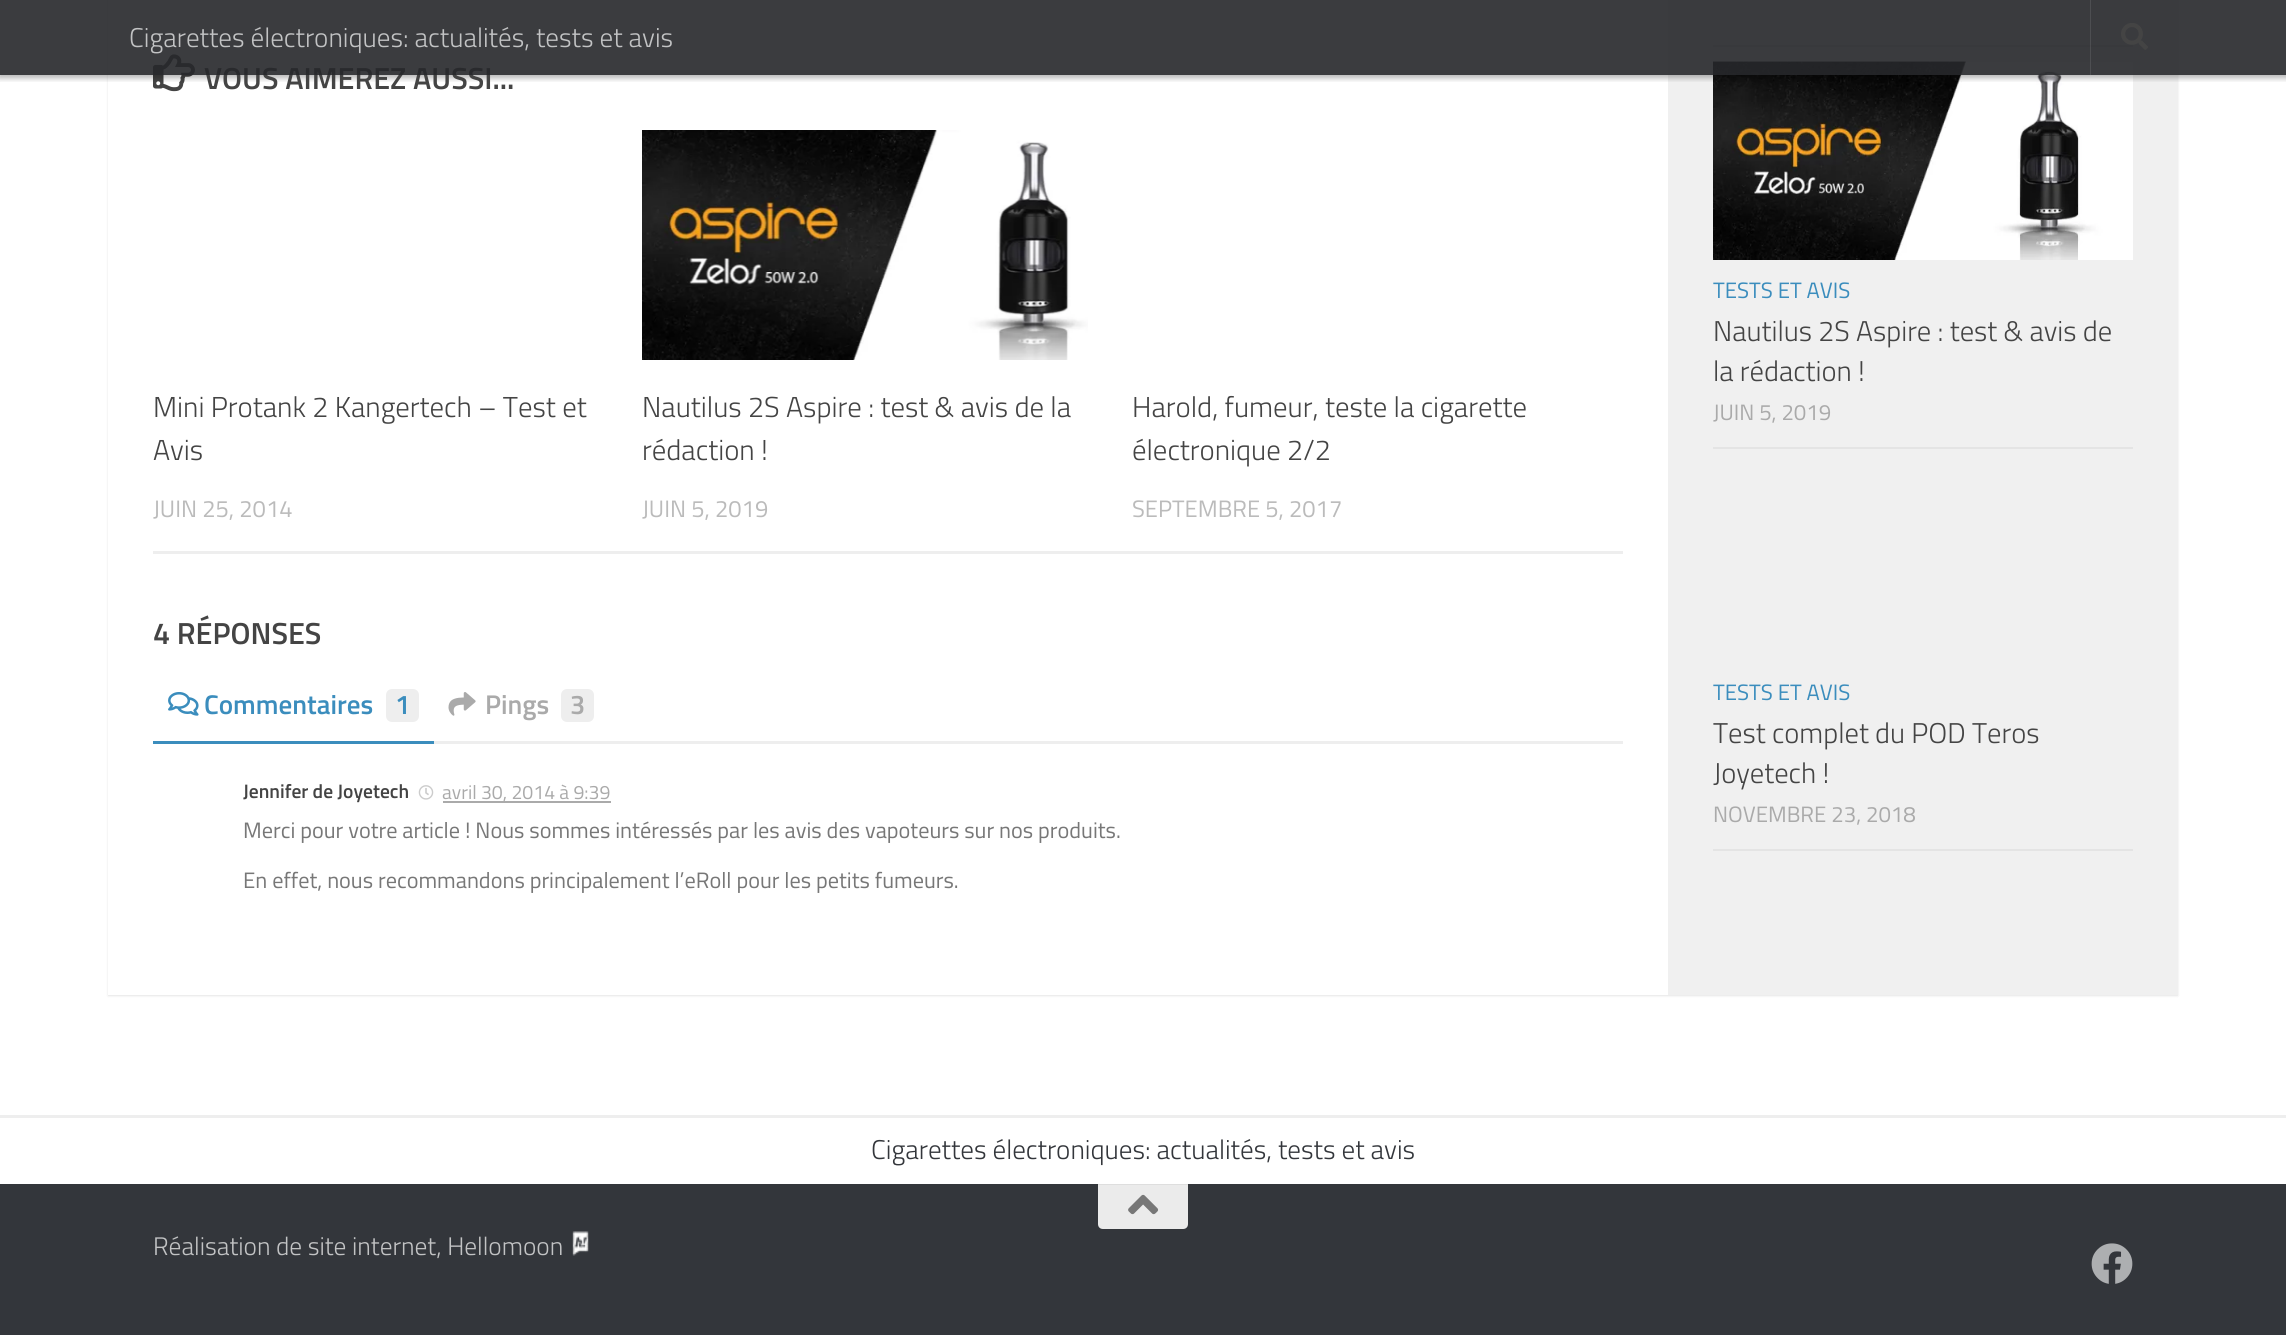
#include <cairo.h>
#include <math.h>
#include <stddef.h>


static void round_rect(cairo_t *cr, double x, double y, double w, double h, double r) {
    cairo_new_sub_path(cr);
    cairo_arc(cr, x + w - r, y + h - r, r, 0, M_PI / 2);
    cairo_arc(cr, x + r, y + h - r, r, M_PI / 2, M_PI);
    cairo_arc(cr, x + r, y + r, r, M_PI, 1.5 * M_PI);
    cairo_arc(cr, x + w - r, y + r, r, 1.5 * M_PI, 2 * M_PI);
    cairo_close_path(cr);
}

static void shadow(cairo_t *cr, double x, double y, double w, double h, double r, double blur, double alpha) {
    cairo_push_group_with_content(cr, CAIRO_CONTENT_ALPHA);
    cairo_set_operator(cr, CAIRO_OPERATOR_SOURCE);
    for (int i = 15; i >= -15 && fmin(w, h) + blur * i / 3 > 0; i -= 2) {
        double e = blur * i / 6;
        cairo_set_source_rgba(cr, 0, 0, 0, alpha * erfc((i - 1) / 8.5) / 2);
        round_rect(cr, x - e, y - e, w + 2 * e, h + 2 * e, fmax(0, fmin(r + e + blur * .6, fmin(w, h) / 2 + e)));
        cairo_fill(cr);
    }
    cairo_pattern_t *soft = cairo_pop_group(cr);
    cairo_mask(cr, soft);
    cairo_pattern_destroy(soft);
}

static void picture(cairo_t *cr, const char *path, double x, double y, double w, double h) {
    cairo_surface_t *image = cairo_image_surface_create_from_png(path);
    cairo_save(cr);
    cairo_set_source_surface(cr, image, x, y);
    cairo_rectangle(cr, x, y, w, h);
    cairo_fill(cr);
    cairo_restore(cr);
    cairo_surface_destroy(image);
}

int main(void) {
    cairo_surface_t *surface = cairo_image_surface_create(CAIRO_FORMAT_RGB24, 2286, 1335);
    cairo_t *cr = cairo_create(surface);
    cairo_font_options_t *options = cairo_font_options_create();
    cairo_font_options_set_hint_metrics(options, CAIRO_HINT_METRICS_OFF);
    cairo_font_options_set_hint_style(options, CAIRO_HINT_STYLE_NONE);
    cairo_set_font_options(cr, options);
    cairo_set_miter_limit(cr, 4);
    cairo_set_source_rgb(cr, 1, 1, 1);
    cairo_paint(cr);
    cairo_set_source_rgb(cr, 0, 0, 0);
    shadow(cr, 108, -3, 2070, 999, 0, 1, 0.1);
    cairo_set_source_rgb(cr, 1, 1, 1);
    cairo_rectangle(cr, 108, 0, 1560, 995);
    cairo_fill(cr);
    cairo_set_source_rgb(cr, 0.941, 0.941, 0.941);
    cairo_rectangle(cr, 1668, 0, 510, 995);
    cairo_fill(cr);
    picture(cr, "img2.png", 153, 54, 42, 38);
    cairo_set_source_rgb(cr, 0.894, 0.894, 0.894);
    cairo_rectangle(cr, 1713, 45, 420, 2);
    cairo_fill(cr);
    picture(cr, "img7.png", 1713, 61, 420, 199);
    cairo_save(cr);
    cairo_rectangle(cr, 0, 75, 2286, 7);
    cairo_clip(cr);
    cairo_set_source_rgb(cr, 0, 0, 0);
    shadow(cr, -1, 0, 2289, 78, 0, 3, 0.3);
    cairo_restore(cr);
    cairo_select_font_face(cr, "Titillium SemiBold", CAIRO_FONT_SLANT_NORMAL, CAIRO_FONT_WEIGHT_NORMAL);
    cairo_set_font_size(cr, 30.5);
    cairo_set_source_rgb(cr, 0.267, 0.267, 0.267);
    cairo_move_to(cr, 204, 89);
    cairo_show_text(cr, "VOUS AIMEREZ AUSSI...");
    cairo_set_source_rgba(cr, 0.149, 0.153, 0.169, 0.9);
    cairo_rectangle(cr, 0, 0, 2286, 75);
    cairo_fill(cr);
    cairo_select_font_face(cr, "Titillium Light", CAIRO_FONT_SLANT_NORMAL, CAIRO_FONT_WEIGHT_NORMAL);
    cairo_set_font_size(cr, 27.1);
    cairo_set_source_rgb(cr, 0.761, 0.765, 0.769);
    cairo_move_to(cr, 129, 47);
    cairo_show_text(cr, "Cigarettes électroniques: actualités, tests et avis");
    cairo_set_source_rgba(cr, 1, 1, 1, 0.1);
    cairo_rectangle(cr, 2090, 0, 1, 75);
    cairo_fill(cr);
    picture(cr, "img1.png", 2121, 23, 27, 27);
    cairo_set_source_rgb(cr, 0.933, 0.933, 0.933);
    cairo_rectangle(cr, 153, 551, 1470, 3);
    cairo_fill(cr);
    cairo_set_font_size(cr, 28.8);
    cairo_set_source_rgb(cr, 0.267, 0.267, 0.267);
    cairo_move_to(cr, 153, 417);
    cairo_show_text(cr, "Mini Protank 2 Kangertech – Test et");
    cairo_move_to(cr, 153, 460);
    cairo_show_text(cr, "Avis");
    cairo_select_font_face(cr, "Titillium", CAIRO_FONT_SLANT_NORMAL, CAIRO_FONT_WEIGHT_NORMAL);
    cairo_set_font_size(cr, 23.75);
    cairo_set_source_rgb(cr, 0.733, 0.733, 0.733);
    cairo_move_to(cr, 153, 517);
    cairo_show_text(cr, "JUIN 25, 2014");
    picture(cr, "img3.png", 642, 130, 446, 230);
    cairo_select_font_face(cr, "Titillium Light", CAIRO_FONT_SLANT_NORMAL, CAIRO_FONT_WEIGHT_NORMAL);
    cairo_set_font_size(cr, 28.8);
    cairo_set_source_rgb(cr, 0.267, 0.267, 0.267);
    cairo_move_to(cr, 642, 417);
    cairo_show_text(cr, "Nautilus 2S Aspire : test & avis de la");
    cairo_move_to(cr, 642, 460);
    cairo_show_text(cr, "rédaction !");
    cairo_select_font_face(cr, "Titillium", CAIRO_FONT_SLANT_NORMAL, CAIRO_FONT_WEIGHT_NORMAL);
    cairo_set_font_size(cr, 23.75);
    cairo_set_source_rgb(cr, 0.733, 0.733, 0.733);
    cairo_move_to(cr, 642, 517);
    cairo_show_text(cr, "JUIN 5, 2019");
    cairo_select_font_face(cr, "Titillium Light", CAIRO_FONT_SLANT_NORMAL, CAIRO_FONT_WEIGHT_NORMAL);
    cairo_set_font_size(cr, 28.8);
    cairo_set_source_rgb(cr, 0.267, 0.267, 0.267);
    cairo_move_to(cr, 1132, 417);
    cairo_show_text(cr, "Harold, fumeur, teste la cigarette");
    cairo_move_to(cr, 1132, 460);
    cairo_show_text(cr, "électronique 2/2");
    cairo_select_font_face(cr, "Titillium", CAIRO_FONT_SLANT_NORMAL, CAIRO_FONT_WEIGHT_NORMAL);
    cairo_set_font_size(cr, 23.75);
    cairo_set_source_rgb(cr, 0.733, 0.733, 0.733);
    cairo_move_to(cr, 1132, 517);
    cairo_show_text(cr, "SEPTEMBRE 5, 2017");
    cairo_select_font_face(cr, "Titillium SemiBold", CAIRO_FONT_SLANT_NORMAL, CAIRO_FONT_WEIGHT_NORMAL);
    cairo_set_font_size(cr, 30.5);
    cairo_set_source_rgb(cr, 0.267, 0.267, 0.267);
    cairo_move_to(cr, 153, 644);
    cairo_show_text(cr, "4 RÉPONSES");
    cairo_set_source_rgb(cr, 0.933, 0.933, 0.933);
    cairo_rectangle(cr, 434, 741, 1189, 3);
    cairo_fill(cr);
    cairo_set_source_rgb(cr, 0.231, 0.553, 0.741);
    cairo_rectangle(cr, 153, 741, 281, 3);
    cairo_fill(cr);
    picture(cr, "img4.png", 168, 692, 31, 24);
    cairo_set_font_size(cr, 27.1);
    cairo_move_to(cr, 204, 714);
    cairo_show_text(cr, "Commentaires");
    cairo_set_source_rgb(cr, 0.933, 0.933, 0.933);
    round_rect(cr, 386, 689, 33, 33, 6);
    cairo_fill(cr);
    cairo_set_source_rgb(cr, 0.231, 0.553, 0.741);
    cairo_move_to(cr, 395, 714);
    cairo_show_text(cr, "1");
    picture(cr, "img5.png", 448, 692, 28, 24);
    cairo_set_source_rgb(cr, 0.667, 0.667, 0.667);
    cairo_move_to(cr, 485, 714);
    cairo_show_text(cr, "Pings");
    cairo_set_source_rgb(cr, 0.933, 0.933, 0.933);
    round_rect(cr, 561, 689, 33, 33, 6);
    cairo_fill(cr);
    cairo_set_source_rgb(cr, 0.667, 0.667, 0.667);
    cairo_move_to(cr, 570, 714);
    cairo_show_text(cr, "3");
    cairo_set_font_size(cr, 19.5);
    cairo_set_source_rgb(cr, 0.267, 0.267, 0.267);
    cairo_move_to(cr, 243, 798);
    cairo_show_text(cr, "Jennifer de Joyetech");
    picture(cr, "img6.png", 418, 785, 16, 15);
    cairo_set_source_rgb(cr, 0.667, 0.667, 0.667);
    cairo_rectangle(cr, 443, 801, 168, 2);
    cairo_fill(cr);
    cairo_select_font_face(cr, "Titillium", CAIRO_FONT_SLANT_NORMAL, CAIRO_FONT_WEIGHT_NORMAL);
    cairo_move_to(cr, 442, 799);
    cairo_show_text(cr, "avril 30, 2014 à 9:39");
    cairo_set_font_size(cr, 22.3);
    cairo_set_source_rgb(cr, 0.467, 0.467, 0.467);
    cairo_move_to(cr, 243, 838);
    cairo_show_text(cr, "Merci pour votre article ! Nous sommes intéressés par les avis des vapoteurs sur nos produits.");
    cairo_move_to(cr, 243, 888);
    cairo_show_text(cr, "En effet, nous recommandons principalement l’eRoll pour les petits fumeurs.");
    cairo_set_source_rgb(cr, 0.894, 0.894, 0.894);
    cairo_rectangle(cr, 1713, 447, 420, 2);
    cairo_fill(cr);
    cairo_set_font_size(cr, 22.25);
    cairo_set_source_rgb(cr, 0.231, 0.553, 0.741);
    cairo_move_to(cr, 1713, 298);
    cairo_show_text(cr, "TESTS ET AVIS");
    cairo_select_font_face(cr, "Titillium Light", CAIRO_FONT_SLANT_NORMAL, CAIRO_FONT_WEIGHT_NORMAL);
    cairo_set_font_size(cr, 28.6);
    cairo_set_source_rgb(cr, 0.267, 0.267, 0.267);
    cairo_move_to(cr, 1713, 341);
    cairo_show_text(cr, "Nautilus 2S Aspire : test & avis de");
    cairo_move_to(cr, 1713, 381);
    cairo_show_text(cr, "la rédaction !");
    cairo_select_font_face(cr, "Titillium", CAIRO_FONT_SLANT_NORMAL, CAIRO_FONT_WEIGHT_NORMAL);
    cairo_set_font_size(cr, 22.25);
    cairo_set_source_rgb(cr, 0.667, 0.667, 0.667);
    cairo_move_to(cr, 1713, 420);
    cairo_show_text(cr, "JUIN 5, 2019");
    cairo_set_source_rgb(cr, 0.894, 0.894, 0.894);
    cairo_rectangle(cr, 1713, 849, 420, 2);
    cairo_fill(cr);
    cairo_set_source_rgb(cr, 0.231, 0.553, 0.741);
    cairo_move_to(cr, 1713, 700);
    cairo_show_text(cr, "TESTS ET AVIS");
    cairo_select_font_face(cr, "Titillium Light", CAIRO_FONT_SLANT_NORMAL, CAIRO_FONT_WEIGHT_NORMAL);
    cairo_set_font_size(cr, 28.6);
    cairo_set_source_rgb(cr, 0.267, 0.267, 0.267);
    cairo_move_to(cr, 1713, 743);
    cairo_show_text(cr, "Test complet du POD Teros");
    cairo_move_to(cr, 1713, 783);
    cairo_show_text(cr, "Joyetech !");
    cairo_select_font_face(cr, "Titillium", CAIRO_FONT_SLANT_NORMAL, CAIRO_FONT_WEIGHT_NORMAL);
    cairo_set_font_size(cr, 22.25);
    cairo_set_source_rgb(cr, 0.667, 0.667, 0.667);
    cairo_move_to(cr, 1713, 822);
    cairo_show_text(cr, "NOVEMBRE 23, 2018");
    cairo_set_source_rgb(cr, 0.933, 0.933, 0.933);
    cairo_rectangle(cr, 0, 1115, 2286, 3);
    cairo_fill(cr);
    cairo_select_font_face(cr, "Titillium Light", CAIRO_FONT_SLANT_NORMAL, CAIRO_FONT_WEIGHT_NORMAL);
    cairo_set_font_size(cr, 27.1);
    cairo_set_source_rgb(cr, 0.2, 0.212, 0.231);
    cairo_move_to(cr, 871, 1159);
    cairo_show_text(cr, "Cigarettes électroniques: actualités, tests et avis");
    cairo_rectangle(cr, 0, 1184, 2286, 151);
    cairo_fill(cr);
    cairo_set_source_rgb(cr, 0.918, 0.918, 0.918);
    cairo_new_path(cr);
    cairo_move_to(cr, 1098, 1184);
    cairo_line_to(cr, 1188, 1184);
    cairo_line_to(cr, 1188, 1224);
    cairo_curve_to(cr, 1188, 1227, 1186, 1229, 1183, 1229);
    cairo_line_to(cr, 1103, 1229);
    cairo_curve_to(cr, 1100, 1229, 1098, 1227, 1098, 1224);
    cairo_close_path(cr);
    cairo_fill(cr);
    cairo_set_source_rgb(cr, 0.871, 0.871, 0.871);
    cairo_rectangle(cr, 1098, 1184, 90, 1);
    cairo_fill(cr);
    picture(cr, "img8.png", 1128, 1194, 31, 21);
    cairo_set_font_size(cr, 25.4);
    cairo_set_source_rgb(cr, 0.761, 0.765, 0.769);
    cairo_move_to(cr, 153, 1255);
    cairo_show_text(cr, "Réalisation de site internet, Hellomoon");
    picture(cr, "img9.png", 572, 1231, 17, 25);
    picture(cr, "img10.png", 2091, 1243, 42, 41);
    cairo_surface_write_to_png(surface, "page.png");
    cairo_font_options_destroy(options);
    cairo_destroy(cr);
    cairo_surface_destroy(surface);
    return 0;
}
